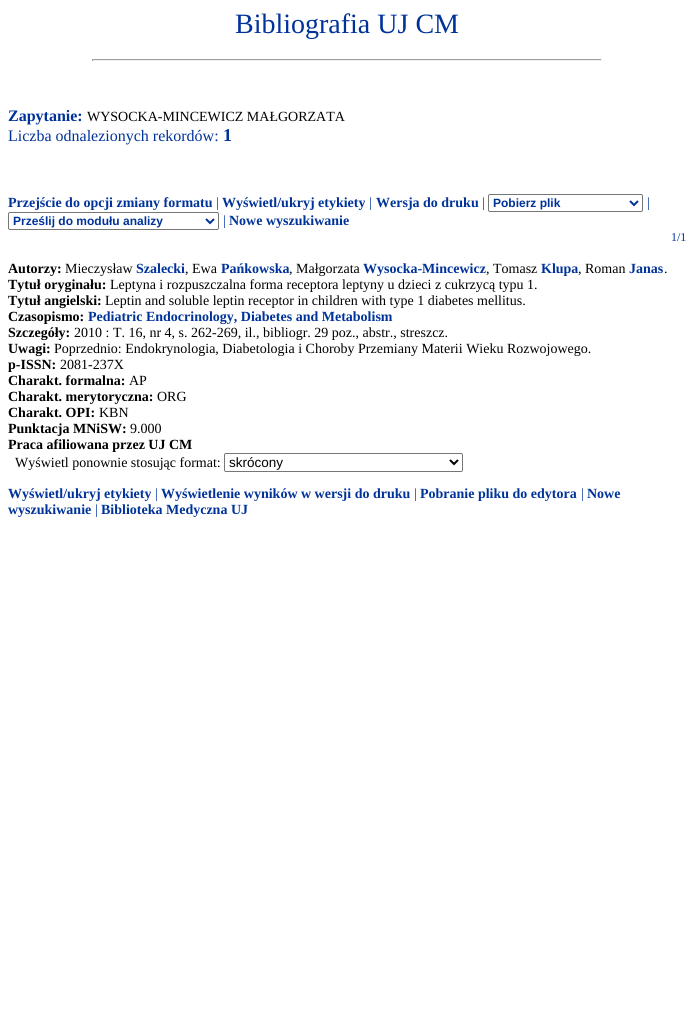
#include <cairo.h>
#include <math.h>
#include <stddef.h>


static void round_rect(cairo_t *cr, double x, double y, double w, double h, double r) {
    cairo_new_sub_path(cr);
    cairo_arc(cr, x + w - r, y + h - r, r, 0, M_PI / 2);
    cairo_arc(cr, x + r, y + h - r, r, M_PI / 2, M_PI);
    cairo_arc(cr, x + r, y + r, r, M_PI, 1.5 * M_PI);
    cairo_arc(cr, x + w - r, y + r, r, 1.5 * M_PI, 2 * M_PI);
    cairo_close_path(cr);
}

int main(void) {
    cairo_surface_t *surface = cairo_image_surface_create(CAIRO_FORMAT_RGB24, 694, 1026);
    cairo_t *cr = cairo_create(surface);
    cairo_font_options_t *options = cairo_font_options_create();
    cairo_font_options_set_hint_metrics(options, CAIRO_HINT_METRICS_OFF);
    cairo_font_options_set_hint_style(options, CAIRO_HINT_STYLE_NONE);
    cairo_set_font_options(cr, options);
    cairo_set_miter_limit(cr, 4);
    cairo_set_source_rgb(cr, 1, 1, 1);
    cairo_paint(cr);
    cairo_select_font_face(cr, "Liberation Serif", CAIRO_FONT_SLANT_NORMAL, CAIRO_FONT_WEIGHT_NORMAL);
    cairo_set_font_size(cr, 28);
    cairo_set_source_rgb(cr, 0, 0.2, 0.6);
    cairo_move_to(cr, 235, 33);
    cairo_show_text(cr, "Bibliografia UJ CM");
    cairo_set_source_rgb(cr, 0.624, 0.624, 0.624);
    cairo_rectangle(cr, 92, 59, 510, 1);
    cairo_fill(cr);
    cairo_set_source_rgb(cr, 0.933, 0.933, 0.933);
    cairo_rectangle(cr, 601, 59, 1, 2);
    cairo_fill(cr);
    cairo_rectangle(cr, 92, 60, 510, 1);
    cairo_fill(cr);
    cairo_set_source_rgb(cr, 0.624, 0.624, 0.624);
    cairo_rectangle(cr, 92, 59, 1, 2);
    cairo_fill(cr);
    cairo_select_font_face(cr, "Liberation Serif", CAIRO_FONT_SLANT_NORMAL, CAIRO_FONT_WEIGHT_BOLD);
    cairo_set_font_size(cr, 16);
    cairo_set_source_rgb(cr, 0, 0.2, 0.6);
    cairo_move_to(cr, 8, 121);
    cairo_show_text(cr, "Zapytanie:");
    cairo_select_font_face(cr, "Liberation Serif", CAIRO_FONT_SLANT_NORMAL, CAIRO_FONT_WEIGHT_NORMAL);
    cairo_set_font_size(cr, 14);
    cairo_set_source_rgb(cr, 0, 0, 0);
    cairo_move_to(cr, 87, 121);
    cairo_show_text(cr, "WYSOCKA-MINCEWICZ MAŁGORZATA");
    cairo_set_font_size(cr, 16);
    cairo_set_source_rgb(cr, 0, 0.2, 0.6);
    cairo_move_to(cr, 8, 141);
    cairo_show_text(cr, "Liczba odnalezionych rekordów:");
    cairo_select_font_face(cr, "Liberation Serif", CAIRO_FONT_SLANT_NORMAL, CAIRO_FONT_WEIGHT_BOLD);
    cairo_set_font_size(cr, 18);
    cairo_move_to(cr, 223, 141);
    cairo_show_text(cr, "1");
    cairo_set_font_size(cr, 14);
    cairo_move_to(cr, 8, 207);
    cairo_show_text(cr, "Przejście do opcji zmiany formatu");
    cairo_select_font_face(cr, "Liberation Serif", CAIRO_FONT_SLANT_NORMAL, CAIRO_FONT_WEIGHT_NORMAL);
    cairo_move_to(cr, 216, 207);
    cairo_show_text(cr, "|");
    cairo_select_font_face(cr, "Liberation Serif", CAIRO_FONT_SLANT_NORMAL, CAIRO_FONT_WEIGHT_BOLD);
    cairo_move_to(cr, 222, 207);
    cairo_show_text(cr, "Wyświetl/ukryj etykiety");
    cairo_select_font_face(cr, "Liberation Serif", CAIRO_FONT_SLANT_NORMAL, CAIRO_FONT_WEIGHT_NORMAL);
    cairo_move_to(cr, 369, 207);
    cairo_show_text(cr, "|");
    cairo_select_font_face(cr, "Liberation Serif", CAIRO_FONT_SLANT_NORMAL, CAIRO_FONT_WEIGHT_BOLD);
    cairo_move_to(cr, 376, 207);
    cairo_show_text(cr, "Wersja do druku");
    cairo_select_font_face(cr, "Liberation Serif", CAIRO_FONT_SLANT_NORMAL, CAIRO_FONT_WEIGHT_NORMAL);
    cairo_move_to(cr, 482, 207);
    cairo_show_text(cr, "|");
    round_rect(cr, 488.5, 194.5, 154, 17, 1.5);
    cairo_set_source_rgb(cr, 0.463, 0.463, 0.463);
    cairo_set_line_width(cr, 1);
    cairo_stroke(cr);
    cairo_new_path(cr);
    cairo_move_to(cr, 630, 201);
    cairo_line_to(cr, 634, 205);
    cairo_line_to(cr, 638, 201);
    cairo_set_source_rgb(cr, 0, 0.2, 0.6);
    cairo_set_line_width(cr, 2);
    cairo_stroke(cr);
    cairo_select_font_face(cr, "Liberation Sans", CAIRO_FONT_SLANT_NORMAL, CAIRO_FONT_WEIGHT_BOLD);
    cairo_set_font_size(cr, 12);
    cairo_move_to(cr, 493, 207);
    cairo_show_text(cr, "Pobierz plik");
    cairo_select_font_face(cr, "Liberation Serif", CAIRO_FONT_SLANT_NORMAL, CAIRO_FONT_WEIGHT_NORMAL);
    cairo_set_font_size(cr, 14);
    cairo_move_to(cr, 647, 207);
    cairo_show_text(cr, "|");
    round_rect(cr, 8.5, 212.5, 210, 17, 1.5);
    cairo_set_source_rgb(cr, 0.463, 0.463, 0.463);
    cairo_set_line_width(cr, 1);
    cairo_stroke(cr);
    cairo_new_path(cr);
    cairo_move_to(cr, 206, 219);
    cairo_line_to(cr, 210, 223);
    cairo_line_to(cr, 214, 219);
    cairo_set_source_rgb(cr, 0, 0.2, 0.6);
    cairo_set_line_width(cr, 2);
    cairo_stroke(cr);
    cairo_select_font_face(cr, "Liberation Sans", CAIRO_FONT_SLANT_NORMAL, CAIRO_FONT_WEIGHT_BOLD);
    cairo_set_font_size(cr, 12);
    cairo_move_to(cr, 13, 225);
    cairo_show_text(cr, "Prześlij do modułu analizy");
    cairo_select_font_face(cr, "Liberation Serif", CAIRO_FONT_SLANT_NORMAL, CAIRO_FONT_WEIGHT_NORMAL);
    cairo_set_font_size(cr, 14);
    cairo_move_to(cr, 223, 225);
    cairo_show_text(cr, "|");
    cairo_select_font_face(cr, "Liberation Serif", CAIRO_FONT_SLANT_NORMAL, CAIRO_FONT_WEIGHT_BOLD);
    cairo_move_to(cr, 229, 225);
    cairo_show_text(cr, "Nowe wyszukiwanie");
    cairo_select_font_face(cr, "Liberation Serif", CAIRO_FONT_SLANT_NORMAL, CAIRO_FONT_WEIGHT_NORMAL);
    cairo_set_font_size(cr, 12);
    cairo_move_to(cr, 671, 241);
    cairo_show_text(cr, "1/1");
    cairo_select_font_face(cr, "Liberation Serif", CAIRO_FONT_SLANT_NORMAL, CAIRO_FONT_WEIGHT_BOLD);
    cairo_set_font_size(cr, 14);
    cairo_set_source_rgb(cr, 0, 0, 0);
    cairo_move_to(cr, 8, 273);
    cairo_show_text(cr, "Autorzy:");
    cairo_select_font_face(cr, "Liberation Serif", CAIRO_FONT_SLANT_NORMAL, CAIRO_FONT_WEIGHT_NORMAL);
    cairo_move_to(cr, 65, 273);
    cairo_show_text(cr, "Mieczysław");
    cairo_select_font_face(cr, "Liberation Serif", CAIRO_FONT_SLANT_NORMAL, CAIRO_FONT_WEIGHT_BOLD);
    cairo_set_source_rgb(cr, 0, 0.2, 0.6);
    cairo_move_to(cr, 136, 273);
    cairo_show_text(cr, "Szalecki");
    cairo_select_font_face(cr, "Liberation Serif", CAIRO_FONT_SLANT_NORMAL, CAIRO_FONT_WEIGHT_NORMAL);
    cairo_set_source_rgb(cr, 0, 0, 0);
    cairo_move_to(cr, 185, 273);
    cairo_show_text(cr, ", Ewa");
    cairo_select_font_face(cr, "Liberation Serif", CAIRO_FONT_SLANT_NORMAL, CAIRO_FONT_WEIGHT_BOLD);
    cairo_set_source_rgb(cr, 0, 0.2, 0.6);
    cairo_move_to(cr, 221, 273);
    cairo_show_text(cr, "Pańkowska");
    cairo_select_font_face(cr, "Liberation Serif", CAIRO_FONT_SLANT_NORMAL, CAIRO_FONT_WEIGHT_NORMAL);
    cairo_set_source_rgb(cr, 0, 0, 0);
    cairo_move_to(cr, 289, 273);
    cairo_show_text(cr, ", Małgorzata");
    cairo_select_font_face(cr, "Liberation Serif", CAIRO_FONT_SLANT_NORMAL, CAIRO_FONT_WEIGHT_BOLD);
    cairo_set_source_rgb(cr, 0, 0.2, 0.6);
    cairo_move_to(cr, 363, 273);
    cairo_show_text(cr, "Wysocka-Mincewicz");
    cairo_select_font_face(cr, "Liberation Serif", CAIRO_FONT_SLANT_NORMAL, CAIRO_FONT_WEIGHT_NORMAL);
    cairo_set_source_rgb(cr, 0, 0, 0);
    cairo_move_to(cr, 486, 273);
    cairo_show_text(cr, ", Tomasz");
    cairo_select_font_face(cr, "Liberation Serif", CAIRO_FONT_SLANT_NORMAL, CAIRO_FONT_WEIGHT_BOLD);
    cairo_set_source_rgb(cr, 0, 0.2, 0.6);
    cairo_move_to(cr, 541, 273);
    cairo_show_text(cr, "Klupa");
    cairo_select_font_face(cr, "Liberation Serif", CAIRO_FONT_SLANT_NORMAL, CAIRO_FONT_WEIGHT_NORMAL);
    cairo_set_source_rgb(cr, 0, 0, 0);
    cairo_move_to(cr, 578, 273);
    cairo_show_text(cr, ", Roman");
    cairo_select_font_face(cr, "Liberation Serif", CAIRO_FONT_SLANT_NORMAL, CAIRO_FONT_WEIGHT_BOLD);
    cairo_set_source_rgb(cr, 0, 0.2, 0.6);
    cairo_move_to(cr, 629, 273);
    cairo_show_text(cr, "Janas");
    cairo_select_font_face(cr, "Liberation Serif", CAIRO_FONT_SLANT_NORMAL, CAIRO_FONT_WEIGHT_NORMAL);
    cairo_set_source_rgb(cr, 0, 0, 0);
    cairo_move_to(cr, 664, 273);
    cairo_show_text(cr, ".");
    cairo_select_font_face(cr, "Liberation Serif", CAIRO_FONT_SLANT_NORMAL, CAIRO_FONT_WEIGHT_BOLD);
    cairo_move_to(cr, 8, 289);
    cairo_show_text(cr, "Tytuł oryginału:");
    cairo_select_font_face(cr, "Liberation Serif", CAIRO_FONT_SLANT_NORMAL, CAIRO_FONT_WEIGHT_NORMAL);
    cairo_move_to(cr, 110, 289);
    cairo_show_text(cr, "Leptyna i rozpuszczalna forma receptora leptyny u dzieci z cukrzycą typu 1.");
    cairo_select_font_face(cr, "Liberation Serif", CAIRO_FONT_SLANT_NORMAL, CAIRO_FONT_WEIGHT_BOLD);
    cairo_move_to(cr, 8, 305);
    cairo_show_text(cr, "Tytuł angielski:");
    cairo_select_font_face(cr, "Liberation Serif", CAIRO_FONT_SLANT_NORMAL, CAIRO_FONT_WEIGHT_NORMAL);
    cairo_move_to(cr, 105, 305);
    cairo_show_text(cr, "Leptin and soluble leptin receptor in children with type 1 diabetes mellitus.");
    cairo_select_font_face(cr, "Liberation Serif", CAIRO_FONT_SLANT_NORMAL, CAIRO_FONT_WEIGHT_BOLD);
    cairo_move_to(cr, 8, 321);
    cairo_show_text(cr, "Czasopismo:");
    cairo_set_source_rgb(cr, 0, 0.2, 0.6);
    cairo_move_to(cr, 88, 321);
    cairo_show_text(cr, "Pediatric Endocrinology, Diabetes and Metabolism");
    cairo_set_source_rgb(cr, 0, 0, 0);
    cairo_move_to(cr, 8, 337);
    cairo_show_text(cr, "Szczegóły:");
    cairo_select_font_face(cr, "Liberation Serif", CAIRO_FONT_SLANT_NORMAL, CAIRO_FONT_WEIGHT_NORMAL);
    cairo_move_to(cr, 74, 337);
    cairo_show_text(cr, "2010 : T. 16, nr 4, s. 262-269, il., bibliogr. 29 poz., abstr., streszcz.");
    cairo_select_font_face(cr, "Liberation Serif", CAIRO_FONT_SLANT_NORMAL, CAIRO_FONT_WEIGHT_BOLD);
    cairo_move_to(cr, 8, 353);
    cairo_show_text(cr, "Uwagi:");
    cairo_select_font_face(cr, "Liberation Serif", CAIRO_FONT_SLANT_NORMAL, CAIRO_FONT_WEIGHT_NORMAL);
    cairo_move_to(cr, 54, 353);
    cairo_show_text(cr, "Poprzednio: Endokrynologia, Diabetologia i Choroby Przemiany Materii Wieku Rozwojowego.");
    cairo_select_font_face(cr, "Liberation Serif", CAIRO_FONT_SLANT_NORMAL, CAIRO_FONT_WEIGHT_BOLD);
    cairo_move_to(cr, 8, 369);
    cairo_show_text(cr, "p-ISSN:");
    cairo_select_font_face(cr, "Liberation Serif", CAIRO_FONT_SLANT_NORMAL, CAIRO_FONT_WEIGHT_NORMAL);
    cairo_move_to(cr, 60, 369);
    cairo_show_text(cr, "2081-237X");
    cairo_select_font_face(cr, "Liberation Serif", CAIRO_FONT_SLANT_NORMAL, CAIRO_FONT_WEIGHT_BOLD);
    cairo_move_to(cr, 8, 385);
    cairo_show_text(cr, "Charakt. formalna:");
    cairo_select_font_face(cr, "Liberation Serif", CAIRO_FONT_SLANT_NORMAL, CAIRO_FONT_WEIGHT_NORMAL);
    cairo_move_to(cr, 129, 385);
    cairo_show_text(cr, "AP");
    cairo_select_font_face(cr, "Liberation Serif", CAIRO_FONT_SLANT_NORMAL, CAIRO_FONT_WEIGHT_BOLD);
    cairo_move_to(cr, 8, 401);
    cairo_show_text(cr, "Charakt. merytoryczna:");
    cairo_select_font_face(cr, "Liberation Serif", CAIRO_FONT_SLANT_NORMAL, CAIRO_FONT_WEIGHT_NORMAL);
    cairo_move_to(cr, 157, 401);
    cairo_show_text(cr, "ORG");
    cairo_select_font_face(cr, "Liberation Serif", CAIRO_FONT_SLANT_NORMAL, CAIRO_FONT_WEIGHT_BOLD);
    cairo_move_to(cr, 8, 417);
    cairo_show_text(cr, "Charakt. OPI:");
    cairo_select_font_face(cr, "Liberation Serif", CAIRO_FONT_SLANT_NORMAL, CAIRO_FONT_WEIGHT_NORMAL);
    cairo_move_to(cr, 99, 417);
    cairo_show_text(cr, "KBN");
    cairo_select_font_face(cr, "Liberation Serif", CAIRO_FONT_SLANT_NORMAL, CAIRO_FONT_WEIGHT_BOLD);
    cairo_move_to(cr, 8, 433);
    cairo_show_text(cr, "Punktacja MNiSW:");
    cairo_select_font_face(cr, "Liberation Serif", CAIRO_FONT_SLANT_NORMAL, CAIRO_FONT_WEIGHT_NORMAL);
    cairo_move_to(cr, 130, 433);
    cairo_show_text(cr, "9.000");
    cairo_select_font_face(cr, "Liberation Serif", CAIRO_FONT_SLANT_NORMAL, CAIRO_FONT_WEIGHT_BOLD);
    cairo_move_to(cr, 8, 449);
    cairo_show_text(cr, "Praca afiliowana przez UJ CM");
    cairo_select_font_face(cr, "Liberation Serif", CAIRO_FONT_SLANT_NORMAL, CAIRO_FONT_WEIGHT_NORMAL);
    cairo_move_to(cr, 15, 467);
    cairo_show_text(cr, "Wyświetl ponownie stosując format:");
    round_rect(cr, 224.5, 453.5, 238, 18, 1.5);
    cairo_set_source_rgb(cr, 0.463, 0.463, 0.463);
    cairo_set_line_width(cr, 1);
    cairo_stroke(cr);
    cairo_new_path(cr);
    cairo_move_to(cr, 450, 460);
    cairo_line_to(cr, 454, 464);
    cairo_line_to(cr, 458, 460);
    cairo_set_source_rgb(cr, 0, 0, 0);
    cairo_set_line_width(cr, 2);
    cairo_stroke(cr);
    cairo_select_font_face(cr, "Liberation Sans", CAIRO_FONT_SLANT_NORMAL, CAIRO_FONT_WEIGHT_NORMAL);
    cairo_set_font_size(cr, 13.5);
    cairo_move_to(cr, 229, 467);
    cairo_show_text(cr, "skrócony");
    cairo_select_font_face(cr, "Liberation Serif", CAIRO_FONT_SLANT_NORMAL, CAIRO_FONT_WEIGHT_BOLD);
    cairo_set_font_size(cr, 14);
    cairo_set_source_rgb(cr, 0, 0.2, 0.6);
    cairo_move_to(cr, 8, 498);
    cairo_show_text(cr, "Wyświetl/ukryj etykiety");
    cairo_select_font_face(cr, "Liberation Serif", CAIRO_FONT_SLANT_NORMAL, CAIRO_FONT_WEIGHT_NORMAL);
    cairo_move_to(cr, 155, 498);
    cairo_show_text(cr, "|");
    cairo_select_font_face(cr, "Liberation Serif", CAIRO_FONT_SLANT_NORMAL, CAIRO_FONT_WEIGHT_BOLD);
    cairo_move_to(cr, 161, 498);
    cairo_show_text(cr, "Wyświetlenie wyników w wersji do druku");
    cairo_select_font_face(cr, "Liberation Serif", CAIRO_FONT_SLANT_NORMAL, CAIRO_FONT_WEIGHT_NORMAL);
    cairo_move_to(cr, 414, 498);
    cairo_show_text(cr, "|");
    cairo_select_font_face(cr, "Liberation Serif", CAIRO_FONT_SLANT_NORMAL, CAIRO_FONT_WEIGHT_BOLD);
    cairo_move_to(cr, 420, 498);
    cairo_show_text(cr, "Pobranie pliku do edytora");
    cairo_select_font_face(cr, "Liberation Serif", CAIRO_FONT_SLANT_NORMAL, CAIRO_FONT_WEIGHT_NORMAL);
    cairo_move_to(cr, 581, 498);
    cairo_show_text(cr, "|");
    cairo_select_font_face(cr, "Liberation Serif", CAIRO_FONT_SLANT_NORMAL, CAIRO_FONT_WEIGHT_BOLD);
    cairo_move_to(cr, 587, 498);
    cairo_show_text(cr, "Nowe");
    cairo_move_to(cr, 8, 514);
    cairo_show_text(cr, "wyszukiwanie");
    cairo_select_font_face(cr, "Liberation Serif", CAIRO_FONT_SLANT_NORMAL, CAIRO_FONT_WEIGHT_NORMAL);
    cairo_move_to(cr, 95, 514);
    cairo_show_text(cr, "|");
    cairo_select_font_face(cr, "Liberation Serif", CAIRO_FONT_SLANT_NORMAL, CAIRO_FONT_WEIGHT_BOLD);
    cairo_move_to(cr, 101, 514);
    cairo_show_text(cr, "Biblioteka Medyczna UJ");
    cairo_surface_write_to_png(surface, "page.png");
    cairo_font_options_destroy(options);
    cairo_destroy(cr);
    cairo_surface_destroy(surface);
    return 0;
}
